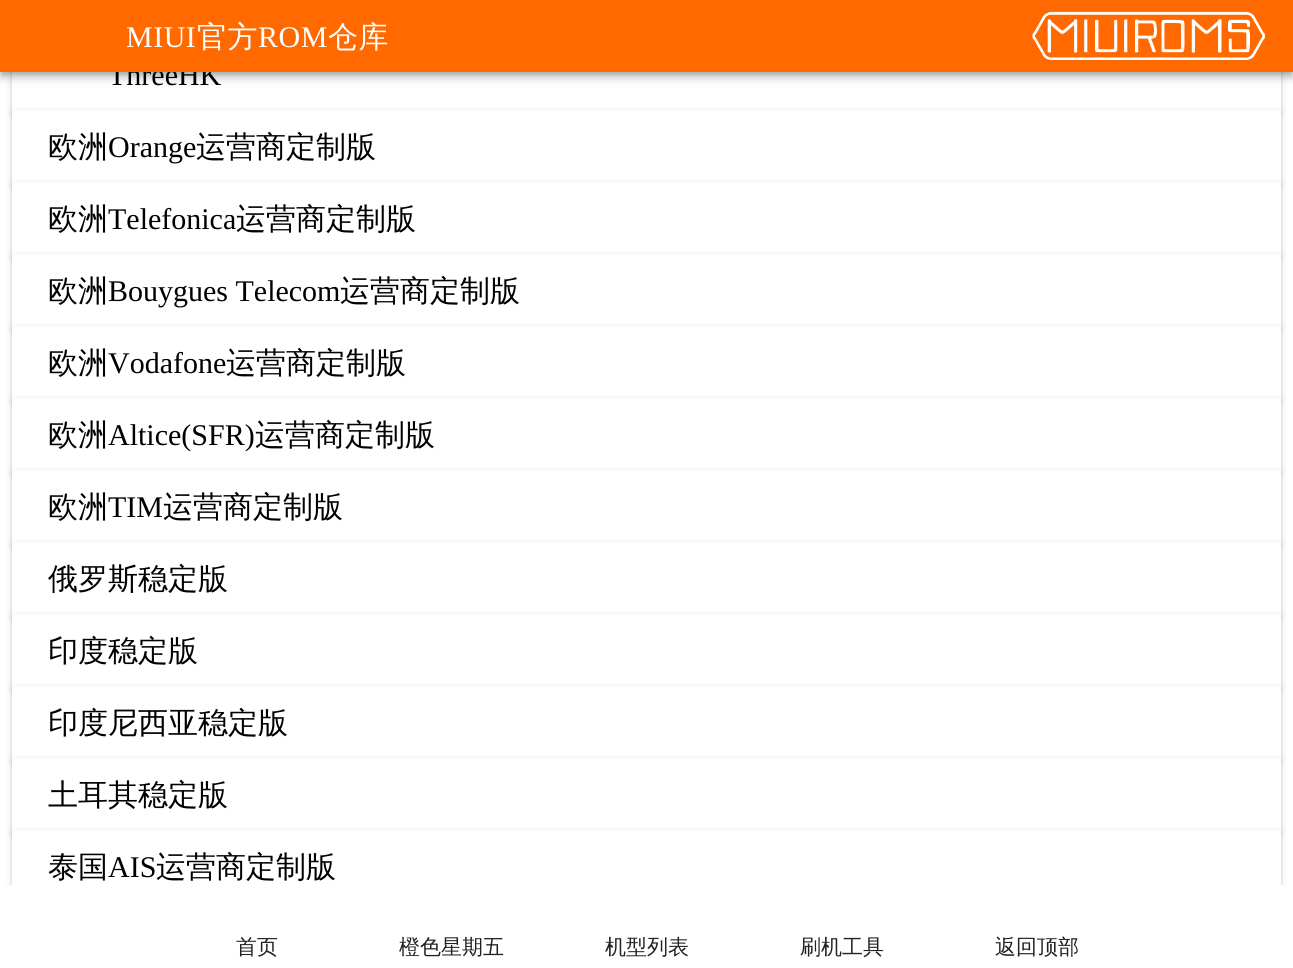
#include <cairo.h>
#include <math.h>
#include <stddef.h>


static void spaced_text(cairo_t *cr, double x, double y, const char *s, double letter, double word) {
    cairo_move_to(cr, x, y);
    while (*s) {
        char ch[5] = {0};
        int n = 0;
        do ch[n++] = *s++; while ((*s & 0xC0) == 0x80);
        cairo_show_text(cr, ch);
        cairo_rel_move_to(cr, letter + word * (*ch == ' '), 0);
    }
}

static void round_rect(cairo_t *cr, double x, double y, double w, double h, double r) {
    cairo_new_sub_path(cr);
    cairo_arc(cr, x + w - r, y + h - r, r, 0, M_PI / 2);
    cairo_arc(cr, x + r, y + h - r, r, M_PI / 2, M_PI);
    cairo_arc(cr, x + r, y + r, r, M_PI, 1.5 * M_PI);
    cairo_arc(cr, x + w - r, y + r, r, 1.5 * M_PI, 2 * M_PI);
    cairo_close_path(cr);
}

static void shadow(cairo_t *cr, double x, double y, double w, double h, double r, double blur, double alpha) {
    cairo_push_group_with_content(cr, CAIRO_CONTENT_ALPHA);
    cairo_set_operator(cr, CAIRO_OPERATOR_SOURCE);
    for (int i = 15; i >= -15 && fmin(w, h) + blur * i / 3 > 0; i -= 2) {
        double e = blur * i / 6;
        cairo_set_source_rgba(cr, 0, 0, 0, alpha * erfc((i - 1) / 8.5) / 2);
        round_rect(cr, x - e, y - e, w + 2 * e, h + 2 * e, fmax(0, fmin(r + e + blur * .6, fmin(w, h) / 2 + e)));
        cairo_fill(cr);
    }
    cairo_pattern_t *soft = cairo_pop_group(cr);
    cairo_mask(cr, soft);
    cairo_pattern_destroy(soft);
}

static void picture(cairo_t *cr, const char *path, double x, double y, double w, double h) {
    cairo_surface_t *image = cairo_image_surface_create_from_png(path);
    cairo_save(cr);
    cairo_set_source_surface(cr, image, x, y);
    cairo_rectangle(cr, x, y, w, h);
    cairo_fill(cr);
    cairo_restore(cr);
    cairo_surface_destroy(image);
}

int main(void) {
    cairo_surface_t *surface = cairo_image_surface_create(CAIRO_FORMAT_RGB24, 1293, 968);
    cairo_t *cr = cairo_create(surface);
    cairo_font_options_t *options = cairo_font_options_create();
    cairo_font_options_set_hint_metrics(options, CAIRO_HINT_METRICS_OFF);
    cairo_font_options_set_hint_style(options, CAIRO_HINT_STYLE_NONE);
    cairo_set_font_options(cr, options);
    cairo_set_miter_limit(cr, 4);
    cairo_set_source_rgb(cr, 1, 1, 1);
    cairo_paint(cr);
    cairo_set_source_rgb(cr, 0, 0, 0);
    shadow(cr, 12, 41, 1269, 72, 0, 4, 0.12);
    shadow(cr, 12, 42, 1269, 72, 0, 1.5, 0.14);
    cairo_set_source_rgb(cr, 1, 1, 1);
    cairo_rectangle(cr, 12, 72, 1269, 39);
    cairo_fill(cr);
    cairo_set_source_rgb(cr, 0, 0, 0);
    shadow(cr, 0, 2, 1293, 72, 0, 7.5, 0.12);
    shadow(cr, 0, 6, 1293, 72, 0, 4, 0.14);
    shadow(cr, 2, 5, 1290, 69, 0, 3, 0.2);
    cairo_select_font_face(cr, "Liberation Serif", CAIRO_FONT_SLANT_NORMAL, CAIRO_FONT_WEIGHT_NORMAL);
    cairo_set_font_size(cr, 30);
    cairo_set_source_rgb(cr, 0, 0, 0);
    cairo_move_to(cr, 108, 85);
    cairo_show_text(cr, "ThreeHK");
    cairo_set_source_rgb(cr, 1, 0.412, 0);
    cairo_rectangle(cr, 0, 0, 1293, 72);
    cairo_fill(cr);
    cairo_set_source_rgb(cr, 1, 1, 1);
    spaced_text(cr, 126, 47, "MIUI", 0.5, 0);
    cairo_select_font_face(cr, "WenQuanYi Zen Hei Medium", CAIRO_FONT_SLANT_NORMAL, CAIRO_FONT_WEIGHT_NORMAL);
    spaced_text(cr, 197, 47, "官方", 0.5, 0);
    cairo_select_font_face(cr, "Liberation Serif", CAIRO_FONT_SLANT_NORMAL, CAIRO_FONT_WEIGHT_NORMAL);
    spaced_text(cr, 258, 47, "ROM", 0.5, 0);
    cairo_select_font_face(cr, "WenQuanYi Zen Hei Medium", CAIRO_FONT_SLANT_NORMAL, CAIRO_FONT_WEIGHT_NORMAL);
    spaced_text(cr, 328, 47, "仓库", 0.5, 0);
    picture(cr, "img1.png", 1032, 11, 233, 50);
    cairo_set_source_rgb(cr, 0, 0, 0);
    shadow(cr, 12, 113, 1269, 72, 0, 4, 0.12);
    shadow(cr, 12, 114, 1269, 72, 0, 1.5, 0.14);
    cairo_set_source_rgb(cr, 1, 1, 1);
    cairo_rectangle(cr, 12, 111, 1269, 72);
    cairo_fill(cr);
    cairo_set_source_rgb(cr, 0, 0, 0);
    cairo_move_to(cr, 48, 157);
    cairo_show_text(cr, "欧洲");
    cairo_select_font_face(cr, "Liberation Serif", CAIRO_FONT_SLANT_NORMAL, CAIRO_FONT_WEIGHT_NORMAL);
    cairo_move_to(cr, 108, 157);
    cairo_show_text(cr, "Orange");
    cairo_select_font_face(cr, "WenQuanYi Zen Hei Medium", CAIRO_FONT_SLANT_NORMAL, CAIRO_FONT_WEIGHT_NORMAL);
    cairo_move_to(cr, 196, 157);
    cairo_show_text(cr, "运营商定制版");
    cairo_set_source_rgb(cr, 0, 0, 0);
    shadow(cr, 12, 185, 1269, 72, 0, 4, 0.12);
    shadow(cr, 12, 186, 1269, 72, 0, 1.5, 0.14);
    cairo_set_source_rgb(cr, 1, 1, 1);
    cairo_rectangle(cr, 12, 183, 1269, 72);
    cairo_fill(cr);
    cairo_set_source_rgb(cr, 0, 0, 0);
    cairo_move_to(cr, 48, 229);
    cairo_show_text(cr, "欧洲");
    cairo_select_font_face(cr, "Liberation Serif", CAIRO_FONT_SLANT_NORMAL, CAIRO_FONT_WEIGHT_NORMAL);
    cairo_move_to(cr, 108, 229);
    cairo_show_text(cr, "Telefonica");
    cairo_select_font_face(cr, "WenQuanYi Zen Hei Medium", CAIRO_FONT_SLANT_NORMAL, CAIRO_FONT_WEIGHT_NORMAL);
    cairo_move_to(cr, 236, 229);
    cairo_show_text(cr, "运营商定制版");
    cairo_set_source_rgb(cr, 0, 0, 0);
    shadow(cr, 12, 257, 1269, 72, 0, 4, 0.12);
    shadow(cr, 12, 258, 1269, 72, 0, 1.5, 0.14);
    cairo_set_source_rgb(cr, 1, 1, 1);
    cairo_rectangle(cr, 12, 255, 1269, 72);
    cairo_fill(cr);
    cairo_set_source_rgb(cr, 0, 0, 0);
    cairo_move_to(cr, 48, 301);
    cairo_show_text(cr, "欧洲");
    cairo_select_font_face(cr, "Liberation Serif", CAIRO_FONT_SLANT_NORMAL, CAIRO_FONT_WEIGHT_NORMAL);
    cairo_move_to(cr, 108, 301);
    cairo_show_text(cr, "Bouygues Telecom");
    cairo_select_font_face(cr, "WenQuanYi Zen Hei Medium", CAIRO_FONT_SLANT_NORMAL, CAIRO_FONT_WEIGHT_NORMAL);
    cairo_move_to(cr, 340, 301);
    cairo_show_text(cr, "运营商定制版");
    cairo_set_source_rgb(cr, 0, 0, 0);
    shadow(cr, 12, 329, 1269, 72, 0, 4, 0.12);
    shadow(cr, 12, 330, 1269, 72, 0, 1.5, 0.14);
    cairo_set_source_rgb(cr, 1, 1, 1);
    cairo_rectangle(cr, 12, 327, 1269, 72);
    cairo_fill(cr);
    cairo_set_source_rgb(cr, 0, 0, 0);
    cairo_move_to(cr, 48, 373);
    cairo_show_text(cr, "欧洲");
    cairo_select_font_face(cr, "Liberation Serif", CAIRO_FONT_SLANT_NORMAL, CAIRO_FONT_WEIGHT_NORMAL);
    cairo_move_to(cr, 108, 373);
    cairo_show_text(cr, "Vodafone");
    cairo_select_font_face(cr, "WenQuanYi Zen Hei Medium", CAIRO_FONT_SLANT_NORMAL, CAIRO_FONT_WEIGHT_NORMAL);
    cairo_move_to(cr, 226, 373);
    cairo_show_text(cr, "运营商定制版");
    cairo_set_source_rgb(cr, 0, 0, 0);
    shadow(cr, 12, 401, 1269, 72, 0, 4, 0.12);
    shadow(cr, 12, 402, 1269, 72, 0, 1.5, 0.14);
    cairo_set_source_rgb(cr, 1, 1, 1);
    cairo_rectangle(cr, 12, 399, 1269, 72);
    cairo_fill(cr);
    cairo_set_source_rgb(cr, 0, 0, 0);
    cairo_move_to(cr, 48, 445);
    cairo_show_text(cr, "欧洲");
    cairo_select_font_face(cr, "Liberation Serif", CAIRO_FONT_SLANT_NORMAL, CAIRO_FONT_WEIGHT_NORMAL);
    cairo_move_to(cr, 108, 445);
    cairo_show_text(cr, "Altice(SFR)");
    cairo_select_font_face(cr, "WenQuanYi Zen Hei Medium", CAIRO_FONT_SLANT_NORMAL, CAIRO_FONT_WEIGHT_NORMAL);
    cairo_move_to(cr, 255, 445);
    cairo_show_text(cr, "运营商定制版");
    cairo_set_source_rgb(cr, 0, 0, 0);
    shadow(cr, 12, 473, 1269, 72, 0, 4, 0.12);
    shadow(cr, 12, 474, 1269, 72, 0, 1.5, 0.14);
    cairo_set_source_rgb(cr, 1, 1, 1);
    cairo_rectangle(cr, 12, 471, 1269, 72);
    cairo_fill(cr);
    cairo_set_source_rgb(cr, 0, 0, 0);
    cairo_move_to(cr, 48, 517);
    cairo_show_text(cr, "欧洲");
    cairo_select_font_face(cr, "Liberation Serif", CAIRO_FONT_SLANT_NORMAL, CAIRO_FONT_WEIGHT_NORMAL);
    cairo_move_to(cr, 108, 517);
    cairo_show_text(cr, "TIM");
    cairo_select_font_face(cr, "WenQuanYi Zen Hei Medium", CAIRO_FONT_SLANT_NORMAL, CAIRO_FONT_WEIGHT_NORMAL);
    cairo_move_to(cr, 163, 517);
    cairo_show_text(cr, "运营商定制版");
    cairo_set_source_rgb(cr, 0, 0, 0);
    shadow(cr, 12, 545, 1269, 72, 0, 4, 0.12);
    shadow(cr, 12, 546, 1269, 72, 0, 1.5, 0.14);
    cairo_set_source_rgb(cr, 1, 1, 1);
    cairo_rectangle(cr, 12, 543, 1269, 72);
    cairo_fill(cr);
    cairo_set_source_rgb(cr, 0, 0, 0);
    cairo_move_to(cr, 48, 589);
    cairo_show_text(cr, "俄罗斯稳定版");
    cairo_set_source_rgb(cr, 0, 0, 0);
    shadow(cr, 12, 617, 1269, 72, 0, 4, 0.12);
    shadow(cr, 12, 618, 1269, 72, 0, 1.5, 0.14);
    cairo_set_source_rgb(cr, 1, 1, 1);
    cairo_rectangle(cr, 12, 615, 1269, 72);
    cairo_fill(cr);
    cairo_set_source_rgb(cr, 0, 0, 0);
    cairo_move_to(cr, 48, 661);
    cairo_show_text(cr, "印度稳定版");
    cairo_set_source_rgb(cr, 0, 0, 0);
    shadow(cr, 12, 689, 1269, 72, 0, 4, 0.12);
    shadow(cr, 12, 690, 1269, 72, 0, 1.5, 0.14);
    cairo_set_source_rgb(cr, 1, 1, 1);
    cairo_rectangle(cr, 12, 687, 1269, 72);
    cairo_fill(cr);
    cairo_set_source_rgb(cr, 0, 0, 0);
    cairo_move_to(cr, 48, 733);
    cairo_show_text(cr, "印度尼西亚稳定版");
    cairo_set_source_rgb(cr, 0, 0, 0);
    shadow(cr, 12, 761, 1269, 72, 0, 4, 0.12);
    shadow(cr, 12, 762, 1269, 72, 0, 1.5, 0.14);
    cairo_set_source_rgb(cr, 1, 1, 1);
    cairo_rectangle(cr, 12, 759, 1269, 72);
    cairo_fill(cr);
    cairo_set_source_rgb(cr, 0, 0, 0);
    cairo_move_to(cr, 48, 805);
    cairo_show_text(cr, "土耳其稳定版");
    cairo_set_source_rgb(cr, 0, 0, 0);
    shadow(cr, 12, 833, 1269, 72, 0, 4, 0.12);
    shadow(cr, 12, 834, 1269, 72, 0, 1.5, 0.14);
    cairo_set_source_rgb(cr, 1, 1, 1);
    cairo_rectangle(cr, 12, 831, 1269, 54);
    cairo_fill(cr);
    cairo_set_source_rgb(cr, 0, 0, 0);
    cairo_move_to(cr, 48, 877);
    cairo_show_text(cr, "泰国");
    cairo_select_font_face(cr, "Liberation Serif", CAIRO_FONT_SLANT_NORMAL, CAIRO_FONT_WEIGHT_NORMAL);
    cairo_move_to(cr, 108, 877);
    cairo_show_text(cr, "AIS");
    cairo_select_font_face(cr, "WenQuanYi Zen Hei Medium", CAIRO_FONT_SLANT_NORMAL, CAIRO_FONT_WEIGHT_NORMAL);
    cairo_move_to(cr, 156, 877);
    cairo_show_text(cr, "运营商定制版");
    cairo_set_source_rgb(cr, 1, 1, 1);
    cairo_rectangle(cr, 6, 885, 1281, 26);
    cairo_fill(cr);
    cairo_set_font_size(cr, 21);
    cairo_set_source_rgb(cr, 0.129, 0.129, 0.129);
    cairo_move_to(cr, 236, 954);
    cairo_show_text(cr, "首页");
    cairo_move_to(cr, 399, 954);
    cairo_show_text(cr, "橙色星期五");
    cairo_move_to(cr, 605, 954);
    cairo_show_text(cr, "机型列表");
    cairo_move_to(cr, 800, 954);
    cairo_show_text(cr, "刷机工具");
    cairo_move_to(cr, 995, 954);
    cairo_show_text(cr, "返回顶部");
    cairo_surface_write_to_png(surface, "page.png");
    cairo_font_options_destroy(options);
    cairo_destroy(cr);
    cairo_surface_destroy(surface);
    return 0;
}
